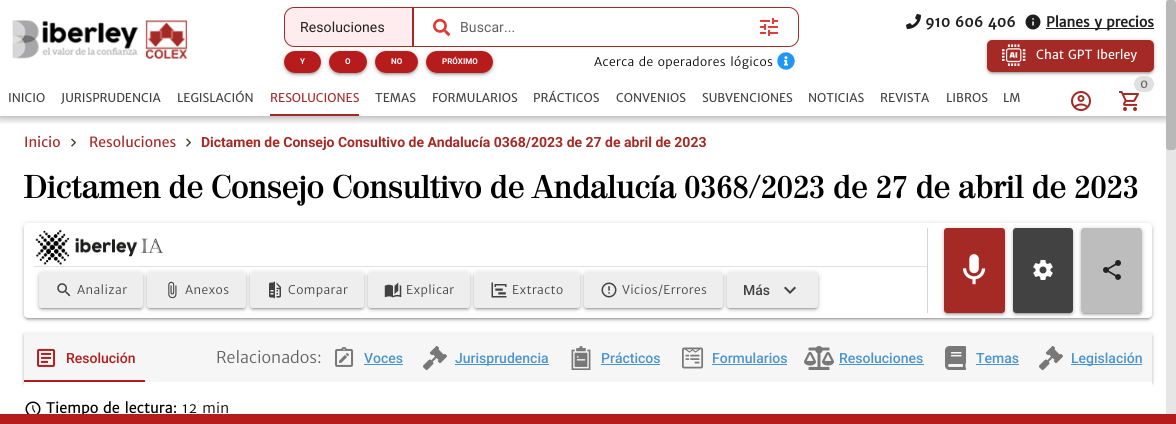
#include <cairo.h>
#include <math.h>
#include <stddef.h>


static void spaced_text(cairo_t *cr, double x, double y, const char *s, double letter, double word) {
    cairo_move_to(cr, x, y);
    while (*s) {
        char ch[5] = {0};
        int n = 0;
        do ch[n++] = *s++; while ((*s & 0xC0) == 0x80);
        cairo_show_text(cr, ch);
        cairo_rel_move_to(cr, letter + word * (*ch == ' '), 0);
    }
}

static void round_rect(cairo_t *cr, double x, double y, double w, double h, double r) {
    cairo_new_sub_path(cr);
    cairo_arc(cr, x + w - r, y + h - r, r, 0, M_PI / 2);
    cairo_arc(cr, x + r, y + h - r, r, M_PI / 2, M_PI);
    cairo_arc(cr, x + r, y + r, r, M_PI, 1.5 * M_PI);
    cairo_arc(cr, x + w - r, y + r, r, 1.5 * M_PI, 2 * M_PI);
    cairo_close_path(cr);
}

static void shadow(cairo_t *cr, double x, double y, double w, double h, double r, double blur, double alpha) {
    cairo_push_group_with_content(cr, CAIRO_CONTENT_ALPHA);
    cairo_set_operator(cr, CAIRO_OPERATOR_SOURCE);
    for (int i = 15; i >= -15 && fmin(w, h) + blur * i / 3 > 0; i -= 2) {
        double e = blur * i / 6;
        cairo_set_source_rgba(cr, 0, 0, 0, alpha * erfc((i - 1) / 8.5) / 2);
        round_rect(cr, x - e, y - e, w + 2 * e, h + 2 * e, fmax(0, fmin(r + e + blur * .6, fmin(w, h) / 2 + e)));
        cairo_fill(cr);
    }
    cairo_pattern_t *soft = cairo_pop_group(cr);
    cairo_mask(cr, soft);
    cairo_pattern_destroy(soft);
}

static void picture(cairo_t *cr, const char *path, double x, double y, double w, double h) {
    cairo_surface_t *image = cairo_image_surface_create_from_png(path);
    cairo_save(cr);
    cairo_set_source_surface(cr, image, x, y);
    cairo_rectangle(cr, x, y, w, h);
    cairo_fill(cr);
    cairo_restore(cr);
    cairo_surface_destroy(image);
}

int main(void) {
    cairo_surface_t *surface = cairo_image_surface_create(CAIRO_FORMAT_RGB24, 1176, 424);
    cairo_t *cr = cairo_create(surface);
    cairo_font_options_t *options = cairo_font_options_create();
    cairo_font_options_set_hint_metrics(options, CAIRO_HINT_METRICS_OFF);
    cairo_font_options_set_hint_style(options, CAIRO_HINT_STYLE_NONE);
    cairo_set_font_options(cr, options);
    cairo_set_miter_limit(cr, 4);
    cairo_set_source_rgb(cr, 1, 1, 1);
    cairo_paint(cr);
    cairo_set_source_rgb(cr, 0.902, 0.902, 0.902);
    cairo_rectangle(cr, 1166, 0, 10, 414);
    cairo_fill(cr);
    picture(cr, "img1.png", 12, 20, 176, 39);
    cairo_set_source_rgb(cr, 1, 0.922, 0.933);
    cairo_new_path(cr);
    cairo_move_to(cr, 294, 7.5);
    cairo_line_to(cr, 412.5, 7.5);
    cairo_line_to(cr, 412.5, 46.5);
    cairo_line_to(cr, 294, 46.5);
    cairo_curve_to(cr, 289, 46.5, 284.5, 42, 284.5, 37);
    cairo_line_to(cr, 284.5, 17);
    cairo_curve_to(cr, 284.5, 12, 289, 7.5, 294, 7.5);
    cairo_close_path(cr);
    cairo_fill_preserve(cr);
    cairo_set_source_rgb(cr, 0.647, 0.161, 0.145);
    cairo_set_line_width(cr, 1);
    cairo_stroke(cr);
    cairo_new_path(cr);
    cairo_move_to(cr, 413.5, 7.5);
    cairo_line_to(cr, 789, 7.5);
    cairo_curve_to(cr, 794, 7.5, 798.5, 12, 798.5, 17);
    cairo_line_to(cr, 798.5, 37);
    cairo_curve_to(cr, 798.5, 42, 794, 46.5, 789, 46.5);
    cairo_line_to(cr, 413.5, 46.5);
    cairo_close_path(cr);
    cairo_stroke(cr);
    picture(cr, "img2.png", 433, 18, 18, 18);
    picture(cr, "img3.png", 760, 17, 19, 19);
    cairo_set_source_rgb(cr, 0.718, 0.11, 0.11);
    round_rect(cr, 284, 51, 37, 22, 11);
    cairo_fill(cr);
    cairo_save(cr);
    cairo_set_fill_rule(cr, CAIRO_FILL_RULE_EVEN_ODD);
    cairo_new_path(cr);
    cairo_move_to(cr, 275, 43);
    cairo_line_to(cr, 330, 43);
    cairo_line_to(cr, 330, 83);
    cairo_line_to(cr, 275, 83);
    cairo_close_path(cr);
    cairo_move_to(cr, 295, 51);
    cairo_line_to(cr, 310, 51);
    cairo_curve_to(cr, 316, 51, 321, 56, 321, 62);
    cairo_curve_to(cr, 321, 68, 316, 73, 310, 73);
    cairo_line_to(cr, 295, 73);
    cairo_curve_to(cr, 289, 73, 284, 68, 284, 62);
    cairo_curve_to(cr, 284, 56, 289, 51, 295, 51);
    cairo_close_path(cr);
    cairo_clip(cr);
    cairo_set_source_rgb(cr, 0, 0, 0);
    shadow(cr, 284, 52, 37, 22, 11, 2.5, 0.2);
    cairo_restore(cr);
    round_rect(cr, 329, 51, 38, 22, 11);
    cairo_fill(cr);
    cairo_save(cr);
    cairo_set_fill_rule(cr, CAIRO_FILL_RULE_EVEN_ODD);
    cairo_new_path(cr);
    cairo_move_to(cr, 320, 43);
    cairo_line_to(cr, 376, 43);
    cairo_line_to(cr, 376, 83);
    cairo_line_to(cr, 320, 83);
    cairo_close_path(cr);
    cairo_move_to(cr, 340, 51);
    cairo_line_to(cr, 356, 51);
    cairo_curve_to(cr, 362, 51, 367, 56, 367, 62);
    cairo_curve_to(cr, 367, 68, 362, 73, 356, 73);
    cairo_line_to(cr, 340, 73);
    cairo_curve_to(cr, 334, 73, 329, 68, 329, 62);
    cairo_curve_to(cr, 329, 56, 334, 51, 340, 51);
    cairo_close_path(cr);
    cairo_clip(cr);
    cairo_set_source_rgb(cr, 0, 0, 0);
    shadow(cr, 329, 52, 38, 22, 11, 2.5, 0.2);
    cairo_restore(cr);
    round_rect(cr, 375, 51, 43, 22, 11);
    cairo_fill(cr);
    cairo_save(cr);
    cairo_set_fill_rule(cr, CAIRO_FILL_RULE_EVEN_ODD);
    cairo_new_path(cr);
    cairo_move_to(cr, 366, 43);
    cairo_line_to(cr, 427, 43);
    cairo_line_to(cr, 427, 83);
    cairo_line_to(cr, 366, 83);
    cairo_close_path(cr);
    cairo_move_to(cr, 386, 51);
    cairo_line_to(cr, 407, 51);
    cairo_curve_to(cr, 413, 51, 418, 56, 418, 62);
    cairo_curve_to(cr, 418, 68, 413, 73, 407, 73);
    cairo_line_to(cr, 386, 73);
    cairo_curve_to(cr, 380, 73, 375, 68, 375, 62);
    cairo_curve_to(cr, 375, 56, 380, 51, 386, 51);
    cairo_close_path(cr);
    cairo_clip(cr);
    cairo_set_source_rgb(cr, 0, 0, 0);
    shadow(cr, 375, 52, 43, 22, 11, 2.5, 0.2);
    cairo_restore(cr);
    round_rect(cr, 426, 51, 67, 22, 11);
    cairo_fill(cr);
    picture(cr, "img4.png", 777, 52, 18, 18);
    picture(cr, "img5.png", 906, 14, 15, 15);
    picture(cr, "img6.png", 1025, 14, 16, 16);
    cairo_set_source_rgb(cr, 0.114, 0.114, 0.114);
    cairo_rectangle(cr, 1046, 28, 108, 1);
    cairo_fill(cr);
    cairo_set_source_rgb(cr, 0.647, 0.161, 0.145);
    round_rect(cr, 987, 40, 167, 32, 5);
    cairo_fill(cr);
    cairo_save(cr);
    cairo_set_fill_rule(cr, CAIRO_FILL_RULE_EVEN_ODD);
    cairo_new_path(cr);
    cairo_move_to(cr, 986, 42);
    cairo_line_to(cr, 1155, 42);
    cairo_line_to(cr, 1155, 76);
    cairo_line_to(cr, 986, 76);
    cairo_close_path(cr);
    cairo_move_to(cr, 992, 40);
    cairo_line_to(cr, 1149, 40);
    cairo_curve_to(cr, 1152, 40, 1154, 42, 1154, 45);
    cairo_line_to(cr, 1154, 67);
    cairo_curve_to(cr, 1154, 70, 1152, 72, 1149, 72);
    cairo_line_to(cr, 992, 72);
    cairo_curve_to(cr, 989, 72, 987, 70, 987, 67);
    cairo_line_to(cr, 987, 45);
    cairo_curve_to(cr, 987, 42, 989, 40, 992, 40);
    cairo_close_path(cr);
    cairo_clip(cr);
    cairo_set_source_rgb(cr, 0, 0, 0);
    shadow(cr, 989, 45, 163, 28, 3, 0.5, 0.12);
    cairo_restore(cr);
    cairo_save(cr);
    cairo_set_fill_rule(cr, CAIRO_FILL_RULE_EVEN_ODD);
    cairo_new_path(cr);
    cairo_move_to(cr, 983, 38);
    cairo_line_to(cr, 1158, 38);
    cairo_line_to(cr, 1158, 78);
    cairo_line_to(cr, 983, 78);
    cairo_close_path(cr);
    cairo_move_to(cr, 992, 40);
    cairo_line_to(cr, 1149, 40);
    cairo_curve_to(cr, 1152, 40, 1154, 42, 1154, 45);
    cairo_line_to(cr, 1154, 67);
    cairo_curve_to(cr, 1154, 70, 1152, 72, 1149, 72);
    cairo_line_to(cr, 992, 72);
    cairo_curve_to(cr, 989, 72, 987, 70, 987, 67);
    cairo_line_to(cr, 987, 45);
    cairo_curve_to(cr, 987, 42, 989, 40, 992, 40);
    cairo_close_path(cr);
    cairo_clip(cr);
    cairo_set_source_rgb(cr, 0, 0, 0);
    shadow(cr, 987, 42, 167, 32, 5, 1, 0.14);
    cairo_restore(cr);
    cairo_save(cr);
    cairo_set_fill_rule(cr, CAIRO_FILL_RULE_EVEN_ODD);
    cairo_new_path(cr);
    cairo_move_to(cr, 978, 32);
    cairo_line_to(cr, 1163, 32);
    cairo_line_to(cr, 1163, 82);
    cairo_line_to(cr, 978, 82);
    cairo_close_path(cr);
    cairo_move_to(cr, 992, 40);
    cairo_line_to(cr, 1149, 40);
    cairo_curve_to(cr, 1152, 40, 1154, 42, 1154, 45);
    cairo_line_to(cr, 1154, 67);
    cairo_curve_to(cr, 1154, 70, 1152, 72, 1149, 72);
    cairo_line_to(cr, 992, 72);
    cairo_curve_to(cr, 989, 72, 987, 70, 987, 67);
    cairo_line_to(cr, 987, 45);
    cairo_curve_to(cr, 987, 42, 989, 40, 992, 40);
    cairo_close_path(cr);
    cairo_clip(cr);
    cairo_set_source_rgb(cr, 0, 0, 0);
    shadow(cr, 987, 41, 167, 32, 5, 2.5, 0.2);
    cairo_restore(cr);
    picture(cr, "img7.png", 1002, 44, 24, 22);
    picture(cr, "img8.png", 1119, 91, 20, 20);
    cairo_set_source_rgb(cr, 0.878, 0.878, 0.878);
    round_rect(cr, 1134, 76, 20, 16, 8);
    cairo_fill(cr);
    picture(cr, "img9.png", 1071, 91, 20, 20);
    cairo_set_source_rgb(cr, 0.647, 0.161, 0.145);
    cairo_rectangle(cr, 270, 114, 89, 2);
    cairo_fill(cr);
    cairo_set_source_rgb(cr, 0.722, 0.722, 0.722);
    round_rect(cr, 1166, 0, 10, 150, 3);
    cairo_fill(cr);
    cairo_save(cr);
    cairo_rectangle(cr, 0, 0, 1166, 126);
    cairo_clip(cr);
    cairo_rectangle(cr, 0, 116, 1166, 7);
    cairo_clip(cr);
    cairo_set_source_rgb(cr, 0, 0, 0);
    shadow(cr, 0, 0, 1166, 116, 0, 5, 0.24);
    cairo_restore(cr);
    cairo_save(cr);
    cairo_rectangle(cr, 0, 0, 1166, 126);
    cairo_clip(cr);
    cairo_rectangle(cr, 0, 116, 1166, 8);
    cairo_clip(cr);
    cairo_set_source_rgb(cr, 0, 0, 0);
    shadow(cr, -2, -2, 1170, 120, 0, 5, 0.2);
    cairo_restore(cr);
    cairo_select_font_face(cr, "Roboto", CAIRO_FONT_SLANT_NORMAL, CAIRO_FONT_WEIGHT_NORMAL);
    cairo_set_font_size(cr, 14);
    cairo_set_source_rgb(cr, 0.129, 0.122, 0.122);
    spaced_text(cr, 300, 32, "Resoluciones", 0.1, 0);
    cairo_set_source_rgb(cr, 0.38, 0.38, 0.38);
    spaced_text(cr, 460, 32, "Buscar...", 0.1, 0);
    cairo_save(cr);
    cairo_set_fill_rule(cr, CAIRO_FILL_RULE_EVEN_ODD);
    cairo_new_path(cr);
    cairo_move_to(cr, 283, 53);
    cairo_line_to(cr, 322, 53);
    cairo_line_to(cr, 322, 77);
    cairo_line_to(cr, 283, 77);
    cairo_close_path(cr);
    cairo_move_to(cr, 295, 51);
    cairo_line_to(cr, 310, 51);
    cairo_curve_to(cr, 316, 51, 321, 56, 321, 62);
    cairo_curve_to(cr, 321, 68, 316, 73, 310, 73);
    cairo_line_to(cr, 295, 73);
    cairo_curve_to(cr, 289, 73, 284, 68, 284, 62);
    cairo_curve_to(cr, 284, 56, 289, 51, 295, 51);
    cairo_close_path(cr);
    cairo_clip(cr);
    cairo_set_source_rgb(cr, 0, 0, 0);
    shadow(cr, 286, 56, 33, 18, 9, 0.5, 0.12);
    cairo_restore(cr);
    cairo_save(cr);
    cairo_set_fill_rule(cr, CAIRO_FILL_RULE_EVEN_ODD);
    cairo_new_path(cr);
    cairo_move_to(cr, 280, 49);
    cairo_line_to(cr, 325, 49);
    cairo_line_to(cr, 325, 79);
    cairo_line_to(cr, 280, 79);
    cairo_close_path(cr);
    cairo_move_to(cr, 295, 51);
    cairo_line_to(cr, 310, 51);
    cairo_curve_to(cr, 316, 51, 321, 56, 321, 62);
    cairo_curve_to(cr, 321, 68, 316, 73, 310, 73);
    cairo_line_to(cr, 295, 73);
    cairo_curve_to(cr, 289, 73, 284, 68, 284, 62);
    cairo_curve_to(cr, 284, 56, 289, 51, 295, 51);
    cairo_close_path(cr);
    cairo_clip(cr);
    cairo_set_source_rgb(cr, 0, 0, 0);
    shadow(cr, 284, 53, 37, 22, 11, 1, 0.14);
    cairo_restore(cr);
    cairo_select_font_face(cr, "Roboto", CAIRO_FONT_SLANT_NORMAL, CAIRO_FONT_WEIGHT_BOLD);
    cairo_set_font_size(cr, 8);
    cairo_set_source_rgb(cr, 1, 1, 1);
    cairo_move_to(cr, 300, 64);
    cairo_show_text(cr, "Y");
    cairo_save(cr);
    cairo_set_fill_rule(cr, CAIRO_FILL_RULE_EVEN_ODD);
    cairo_new_path(cr);
    cairo_move_to(cr, 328, 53);
    cairo_line_to(cr, 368, 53);
    cairo_line_to(cr, 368, 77);
    cairo_line_to(cr, 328, 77);
    cairo_close_path(cr);
    cairo_move_to(cr, 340, 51);
    cairo_line_to(cr, 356, 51);
    cairo_curve_to(cr, 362, 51, 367, 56, 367, 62);
    cairo_curve_to(cr, 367, 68, 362, 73, 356, 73);
    cairo_line_to(cr, 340, 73);
    cairo_curve_to(cr, 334, 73, 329, 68, 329, 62);
    cairo_curve_to(cr, 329, 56, 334, 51, 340, 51);
    cairo_close_path(cr);
    cairo_clip(cr);
    cairo_set_source_rgb(cr, 0, 0, 0);
    shadow(cr, 331, 56, 34, 18, 9, 0.5, 0.12);
    cairo_restore(cr);
    cairo_save(cr);
    cairo_set_fill_rule(cr, CAIRO_FILL_RULE_EVEN_ODD);
    cairo_new_path(cr);
    cairo_move_to(cr, 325, 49);
    cairo_line_to(cr, 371, 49);
    cairo_line_to(cr, 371, 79);
    cairo_line_to(cr, 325, 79);
    cairo_close_path(cr);
    cairo_move_to(cr, 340, 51);
    cairo_line_to(cr, 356, 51);
    cairo_curve_to(cr, 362, 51, 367, 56, 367, 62);
    cairo_curve_to(cr, 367, 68, 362, 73, 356, 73);
    cairo_line_to(cr, 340, 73);
    cairo_curve_to(cr, 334, 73, 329, 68, 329, 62);
    cairo_curve_to(cr, 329, 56, 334, 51, 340, 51);
    cairo_close_path(cr);
    cairo_clip(cr);
    cairo_set_source_rgb(cr, 0, 0, 0);
    shadow(cr, 329, 53, 38, 22, 11, 1, 0.14);
    cairo_restore(cr);
    cairo_move_to(cr, 345, 64);
    cairo_show_text(cr, "O");
    cairo_save(cr);
    cairo_set_fill_rule(cr, CAIRO_FILL_RULE_EVEN_ODD);
    cairo_new_path(cr);
    cairo_move_to(cr, 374, 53);
    cairo_line_to(cr, 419, 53);
    cairo_line_to(cr, 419, 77);
    cairo_line_to(cr, 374, 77);
    cairo_close_path(cr);
    cairo_move_to(cr, 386, 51);
    cairo_line_to(cr, 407, 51);
    cairo_curve_to(cr, 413, 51, 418, 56, 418, 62);
    cairo_curve_to(cr, 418, 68, 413, 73, 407, 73);
    cairo_line_to(cr, 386, 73);
    cairo_curve_to(cr, 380, 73, 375, 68, 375, 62);
    cairo_curve_to(cr, 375, 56, 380, 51, 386, 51);
    cairo_close_path(cr);
    cairo_clip(cr);
    cairo_set_source_rgb(cr, 0, 0, 0);
    shadow(cr, 377, 56, 39, 18, 9, 0.5, 0.12);
    cairo_restore(cr);
    cairo_save(cr);
    cairo_set_fill_rule(cr, CAIRO_FILL_RULE_EVEN_ODD);
    cairo_new_path(cr);
    cairo_move_to(cr, 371, 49);
    cairo_line_to(cr, 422, 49);
    cairo_line_to(cr, 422, 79);
    cairo_line_to(cr, 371, 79);
    cairo_close_path(cr);
    cairo_move_to(cr, 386, 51);
    cairo_line_to(cr, 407, 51);
    cairo_curve_to(cr, 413, 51, 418, 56, 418, 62);
    cairo_curve_to(cr, 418, 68, 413, 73, 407, 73);
    cairo_line_to(cr, 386, 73);
    cairo_curve_to(cr, 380, 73, 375, 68, 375, 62);
    cairo_curve_to(cr, 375, 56, 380, 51, 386, 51);
    cairo_close_path(cr);
    cairo_clip(cr);
    cairo_set_source_rgb(cr, 0, 0, 0);
    shadow(cr, 375, 53, 43, 22, 11, 1, 0.14);
    cairo_restore(cr);
    cairo_move_to(cr, 391, 64);
    cairo_show_text(cr, "NO");
    cairo_save(cr);
    cairo_set_fill_rule(cr, CAIRO_FILL_RULE_EVEN_ODD);
    cairo_new_path(cr);
    cairo_move_to(cr, 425, 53);
    cairo_line_to(cr, 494, 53);
    cairo_line_to(cr, 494, 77);
    cairo_line_to(cr, 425, 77);
    cairo_close_path(cr);
    cairo_move_to(cr, 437, 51);
    cairo_line_to(cr, 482, 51);
    cairo_curve_to(cr, 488, 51, 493, 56, 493, 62);
    cairo_curve_to(cr, 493, 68, 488, 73, 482, 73);
    cairo_line_to(cr, 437, 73);
    cairo_curve_to(cr, 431, 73, 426, 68, 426, 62);
    cairo_curve_to(cr, 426, 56, 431, 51, 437, 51);
    cairo_close_path(cr);
    cairo_clip(cr);
    cairo_set_source_rgb(cr, 0, 0, 0);
    shadow(cr, 428, 56, 63, 18, 9, 0.5, 0.12);
    cairo_restore(cr);
    cairo_save(cr);
    cairo_set_fill_rule(cr, CAIRO_FILL_RULE_EVEN_ODD);
    cairo_new_path(cr);
    cairo_move_to(cr, 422, 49);
    cairo_line_to(cr, 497, 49);
    cairo_line_to(cr, 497, 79);
    cairo_line_to(cr, 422, 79);
    cairo_close_path(cr);
    cairo_move_to(cr, 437, 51);
    cairo_line_to(cr, 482, 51);
    cairo_curve_to(cr, 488, 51, 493, 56, 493, 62);
    cairo_curve_to(cr, 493, 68, 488, 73, 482, 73);
    cairo_line_to(cr, 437, 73);
    cairo_curve_to(cr, 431, 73, 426, 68, 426, 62);
    cairo_curve_to(cr, 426, 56, 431, 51, 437, 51);
    cairo_close_path(cr);
    cairo_clip(cr);
    cairo_set_source_rgb(cr, 0, 0, 0);
    shadow(cr, 426, 53, 67, 22, 11, 1, 0.14);
    cairo_restore(cr);
    cairo_save(cr);
    cairo_set_fill_rule(cr, CAIRO_FILL_RULE_EVEN_ODD);
    cairo_new_path(cr);
    cairo_move_to(cr, 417, 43);
    cairo_line_to(cr, 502, 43);
    cairo_line_to(cr, 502, 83);
    cairo_line_to(cr, 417, 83);
    cairo_close_path(cr);
    cairo_move_to(cr, 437, 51);
    cairo_line_to(cr, 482, 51);
    cairo_curve_to(cr, 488, 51, 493, 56, 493, 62);
    cairo_curve_to(cr, 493, 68, 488, 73, 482, 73);
    cairo_line_to(cr, 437, 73);
    cairo_curve_to(cr, 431, 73, 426, 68, 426, 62);
    cairo_curve_to(cr, 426, 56, 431, 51, 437, 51);
    cairo_close_path(cr);
    cairo_clip(cr);
    cairo_set_source_rgb(cr, 0, 0, 0);
    shadow(cr, 426, 52, 67, 22, 11, 2.5, 0.2);
    cairo_restore(cr);
    cairo_move_to(cr, 442, 64);
    cairo_show_text(cr, "PRÓXIMO");
    cairo_select_font_face(cr, "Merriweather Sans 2", CAIRO_FONT_SLANT_NORMAL, CAIRO_FONT_WEIGHT_NORMAL);
    cairo_set_font_size(cr, 12);
    cairo_set_source_rgb(cr, 0, 0, 0);
    spaced_text(cr, 594, 66, "Acerca de operadores lógicos", 0.4, 0);
    cairo_select_font_face(cr, "Merriweather Sans 2", CAIRO_FONT_SLANT_NORMAL, CAIRO_FONT_WEIGHT_BOLD);
    cairo_set_font_size(cr, 14);
    cairo_set_source_rgb(cr, 0.129, 0.122, 0.122);
    cairo_move_to(cr, 925, 27);
    cairo_show_text(cr, "910 606 406");
    cairo_move_to(cr, 1046, 27);
    cairo_show_text(cr, "Planes y precios");
    cairo_select_font_face(cr, "Merriweather Sans", CAIRO_FONT_SLANT_NORMAL, CAIRO_FONT_WEIGHT_NORMAL);
    cairo_set_font_size(cr, 12.5);
    cairo_set_source_rgb(cr, 1, 1, 1);
    cairo_move_to(cr, 1036, 59);
    cairo_show_text(cr, "Chat GPT Iberley");
    cairo_set_font_size(cr, 12);
    cairo_set_source_rgb(cr, 0.38, 0.38, 0.38);
    cairo_move_to(cr, 1140, 88);
    cairo_show_text(cr, "0");
    cairo_set_source_rgb(cr, 0.259, 0.259, 0.259);
    cairo_move_to(cr, 8, 102);
    cairo_show_text(cr, "INICIO");
    cairo_move_to(cr, 61, 102);
    cairo_show_text(cr, "JURISPRUDENCIA");
    cairo_move_to(cr, 177, 102);
    cairo_show_text(cr, "LEGISLACIÓN");
    cairo_set_source_rgb(cr, 0.647, 0.161, 0.145);
    cairo_move_to(cr, 270, 102);
    cairo_show_text(cr, "RESOLUCIONES");
    cairo_set_source_rgb(cr, 0.259, 0.259, 0.259);
    cairo_move_to(cr, 375, 102);
    cairo_show_text(cr, "TEMAS");
    cairo_move_to(cr, 432, 102);
    cairo_show_text(cr, "FORMULARIOS");
    cairo_move_to(cr, 533, 102);
    cairo_show_text(cr, "PRÁCTICOS");
    cairo_move_to(cr, 616, 102);
    cairo_show_text(cr, "CONVENIOS");
    cairo_move_to(cr, 702, 102);
    cairo_show_text(cr, "SUBVENCIONES");
    cairo_move_to(cr, 808, 102);
    cairo_show_text(cr, "NOTICIAS");
    cairo_move_to(cr, 880, 102);
    cairo_show_text(cr, "REVISTA");
    cairo_move_to(cr, 946, 102);
    cairo_show_text(cr, "LIBROS");
    cairo_move_to(cr, 1003, 102);
    cairo_show_text(cr, "LM");
    cairo_set_font_size(cr, 14);
    cairo_set_source_rgb(cr, 0.647, 0.161, 0.145);
    cairo_move_to(cr, 24, 147);
    cairo_show_text(cr, "Inicio");
    picture(cr, "img10.png", 71, 138, 6, 9);
    cairo_move_to(cr, 89, 147);
    cairo_show_text(cr, "Resoluciones");
    picture(cr, "img10.png", 186, 138, 6, 9);
    cairo_select_font_face(cr, "Roboto", CAIRO_FONT_SLANT_NORMAL, CAIRO_FONT_WEIGHT_BOLD);
    cairo_move_to(cr, 201, 147);
    cairo_show_text(cr, "Dictamen de Consejo Consultivo de Andalucía 0368/2023 de 27 de abril de 2023");
    cairo_select_font_face(cr, "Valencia", CAIRO_FONT_SLANT_NORMAL, CAIRO_FONT_WEIGHT_BOLD);
    cairo_set_font_size(cr, 32);
    cairo_set_source_rgb(cr, 0, 0, 0);
    cairo_move_to(cr, 24, 198);
    cairo_show_text(cr, "Dictamen de Consejo Consultivo de Andalucía 0368/2023 de 27 de abril de 2023");
    cairo_set_source_rgb(cr, 0, 0, 0);
    shadow(cr, 26, 228, 1124, 91, 2, 0.5, 0.12);
    shadow(cr, 24, 225, 1128, 95, 4, 1, 0.14);
    shadow(cr, 24, 224, 1128, 95, 4, 2.5, 0.2);
    cairo_set_source_rgb(cr, 1, 1, 1);
    round_rect(cr, 24, 223, 1128, 95, 4);
    cairo_fill(cr);
    cairo_set_source_rgb(cr, 0.827, 0.827, 0.827);
    cairo_rectangle(cr, 927, 228, 1, 85);
    cairo_fill(cr);
    picture(cr, "img11.png", 35, 229, 129, 36);
    cairo_set_source_rgb(cr, 0.878, 0.878, 0.878);
    cairo_rectangle(cr, 34, 266, 893, 1);
    cairo_fill(cr);
    cairo_set_source_rgb(cr, 0.933, 0.933, 0.933);
    round_rect(cr, 39, 272, 104, 36, 3);
    cairo_fill(cr);
    cairo_save(cr);
    cairo_rectangle(cr, 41, 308, 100, 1);
    cairo_clip(cr);
    cairo_set_source_rgb(cr, 0, 0, 0);
    shadow(cr, 41, 277, 100, 32, 1, 0.5, 0.12);
    cairo_restore(cr);
    cairo_save(cr);
    cairo_set_fill_rule(cr, CAIRO_FILL_RULE_EVEN_ODD);
    cairo_new_path(cr);
    cairo_move_to(cr, 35, 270);
    cairo_line_to(cr, 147, 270);
    cairo_line_to(cr, 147, 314);
    cairo_line_to(cr, 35, 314);
    cairo_close_path(cr);
    cairo_move_to(cr, 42, 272);
    cairo_line_to(cr, 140, 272);
    cairo_curve_to(cr, 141.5, 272, 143, 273.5, 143, 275);
    cairo_line_to(cr, 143, 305);
    cairo_curve_to(cr, 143, 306.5, 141.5, 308, 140, 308);
    cairo_line_to(cr, 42, 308);
    cairo_curve_to(cr, 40.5, 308, 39, 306.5, 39, 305);
    cairo_line_to(cr, 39, 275);
    cairo_curve_to(cr, 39, 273.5, 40.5, 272, 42, 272);
    cairo_close_path(cr);
    cairo_clip(cr);
    cairo_set_source_rgb(cr, 0, 0, 0);
    shadow(cr, 39, 274, 104, 36, 3, 1, 0.14);
    cairo_restore(cr);
    cairo_save(cr);
    cairo_set_fill_rule(cr, CAIRO_FILL_RULE_EVEN_ODD);
    cairo_new_path(cr);
    cairo_move_to(cr, 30, 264);
    cairo_line_to(cr, 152, 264);
    cairo_line_to(cr, 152, 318);
    cairo_line_to(cr, 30, 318);
    cairo_close_path(cr);
    cairo_move_to(cr, 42, 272);
    cairo_line_to(cr, 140, 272);
    cairo_curve_to(cr, 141.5, 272, 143, 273.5, 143, 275);
    cairo_line_to(cr, 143, 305);
    cairo_curve_to(cr, 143, 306.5, 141.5, 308, 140, 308);
    cairo_line_to(cr, 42, 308);
    cairo_curve_to(cr, 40.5, 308, 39, 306.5, 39, 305);
    cairo_line_to(cr, 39, 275);
    cairo_curve_to(cr, 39, 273.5, 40.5, 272, 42, 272);
    cairo_close_path(cr);
    cairo_clip(cr);
    cairo_set_source_rgb(cr, 0, 0, 0);
    shadow(cr, 39, 273, 104, 36, 3, 2.5, 0.2);
    cairo_restore(cr);
    picture(cr, "img12.png", 57, 283, 14, 14);
    cairo_select_font_face(cr, "Merriweather Sans 2", CAIRO_FONT_SLANT_NORMAL, CAIRO_FONT_WEIGHT_NORMAL);
    cairo_set_font_size(cr, 12);
    cairo_set_source_rgb(cr, 0.259, 0.259, 0.259);
    spaced_text(cr, 77, 294, "Analizar", 0.4, 0);
    cairo_set_source_rgb(cr, 0.933, 0.933, 0.933);
    round_rect(cr, 147, 272, 99, 36, 3);
    cairo_fill(cr);
    cairo_save(cr);
    cairo_rectangle(cr, 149, 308, 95, 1);
    cairo_clip(cr);
    cairo_set_source_rgb(cr, 0, 0, 0);
    shadow(cr, 149, 277, 95, 32, 1, 0.5, 0.12);
    cairo_restore(cr);
    cairo_save(cr);
    cairo_set_fill_rule(cr, CAIRO_FILL_RULE_EVEN_ODD);
    cairo_new_path(cr);
    cairo_move_to(cr, 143, 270);
    cairo_line_to(cr, 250, 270);
    cairo_line_to(cr, 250, 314);
    cairo_line_to(cr, 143, 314);
    cairo_close_path(cr);
    cairo_move_to(cr, 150, 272);
    cairo_line_to(cr, 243, 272);
    cairo_curve_to(cr, 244.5, 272, 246, 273.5, 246, 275);
    cairo_line_to(cr, 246, 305);
    cairo_curve_to(cr, 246, 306.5, 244.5, 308, 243, 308);
    cairo_line_to(cr, 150, 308);
    cairo_curve_to(cr, 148.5, 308, 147, 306.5, 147, 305);
    cairo_line_to(cr, 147, 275);
    cairo_curve_to(cr, 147, 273.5, 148.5, 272, 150, 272);
    cairo_close_path(cr);
    cairo_clip(cr);
    cairo_set_source_rgb(cr, 0, 0, 0);
    shadow(cr, 147, 274, 99, 36, 3, 1, 0.14);
    cairo_restore(cr);
    cairo_save(cr);
    cairo_set_fill_rule(cr, CAIRO_FILL_RULE_EVEN_ODD);
    cairo_new_path(cr);
    cairo_move_to(cr, 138, 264);
    cairo_line_to(cr, 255, 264);
    cairo_line_to(cr, 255, 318);
    cairo_line_to(cr, 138, 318);
    cairo_close_path(cr);
    cairo_move_to(cr, 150, 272);
    cairo_line_to(cr, 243, 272);
    cairo_curve_to(cr, 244.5, 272, 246, 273.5, 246, 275);
    cairo_line_to(cr, 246, 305);
    cairo_curve_to(cr, 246, 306.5, 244.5, 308, 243, 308);
    cairo_line_to(cr, 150, 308);
    cairo_curve_to(cr, 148.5, 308, 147, 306.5, 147, 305);
    cairo_line_to(cr, 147, 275);
    cairo_curve_to(cr, 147, 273.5, 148.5, 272, 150, 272);
    cairo_close_path(cr);
    cairo_clip(cr);
    cairo_set_source_rgb(cr, 0, 0, 0);
    shadow(cr, 147, 273, 99, 36, 3, 2.5, 0.2);
    cairo_restore(cr);
    picture(cr, "img13.png", 168, 281, 9, 18);
    cairo_set_source_rgb(cr, 0.259, 0.259, 0.259);
    spaced_text(cr, 185, 294, "Anexos", 0.4, 0);
    cairo_set_source_rgb(cr, 0.933, 0.933, 0.933);
    round_rect(cr, 250, 272, 114, 36, 3);
    cairo_fill(cr);
    cairo_save(cr);
    cairo_rectangle(cr, 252, 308, 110, 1);
    cairo_clip(cr);
    cairo_set_source_rgb(cr, 0, 0, 0);
    shadow(cr, 252, 277, 110, 32, 1, 0.5, 0.12);
    cairo_restore(cr);
    cairo_save(cr);
    cairo_set_fill_rule(cr, CAIRO_FILL_RULE_EVEN_ODD);
    cairo_new_path(cr);
    cairo_move_to(cr, 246, 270);
    cairo_line_to(cr, 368, 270);
    cairo_line_to(cr, 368, 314);
    cairo_line_to(cr, 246, 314);
    cairo_close_path(cr);
    cairo_move_to(cr, 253, 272);
    cairo_line_to(cr, 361, 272);
    cairo_curve_to(cr, 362.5, 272, 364, 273.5, 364, 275);
    cairo_line_to(cr, 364, 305);
    cairo_curve_to(cr, 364, 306.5, 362.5, 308, 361, 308);
    cairo_line_to(cr, 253, 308);
    cairo_curve_to(cr, 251.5, 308, 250, 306.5, 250, 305);
    cairo_line_to(cr, 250, 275);
    cairo_curve_to(cr, 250, 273.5, 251.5, 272, 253, 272);
    cairo_close_path(cr);
    cairo_clip(cr);
    cairo_set_source_rgb(cr, 0, 0, 0);
    shadow(cr, 250, 274, 114, 36, 3, 1, 0.14);
    cairo_restore(cr);
    cairo_save(cr);
    cairo_set_fill_rule(cr, CAIRO_FILL_RULE_EVEN_ODD);
    cairo_new_path(cr);
    cairo_move_to(cr, 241, 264);
    cairo_line_to(cr, 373, 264);
    cairo_line_to(cr, 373, 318);
    cairo_line_to(cr, 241, 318);
    cairo_close_path(cr);
    cairo_move_to(cr, 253, 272);
    cairo_line_to(cr, 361, 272);
    cairo_curve_to(cr, 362.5, 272, 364, 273.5, 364, 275);
    cairo_line_to(cr, 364, 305);
    cairo_curve_to(cr, 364, 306.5, 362.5, 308, 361, 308);
    cairo_line_to(cr, 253, 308);
    cairo_curve_to(cr, 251.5, 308, 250, 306.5, 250, 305);
    cairo_line_to(cr, 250, 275);
    cairo_curve_to(cr, 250, 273.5, 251.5, 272, 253, 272);
    cairo_close_path(cr);
    cairo_clip(cr);
    cairo_set_source_rgb(cr, 0, 0, 0);
    shadow(cr, 250, 273, 114, 36, 3, 2.5, 0.2);
    cairo_restore(cr);
    picture(cr, "img14.png", 269, 281, 12, 18);
    cairo_set_source_rgb(cr, 0.259, 0.259, 0.259);
    spaced_text(cr, 288, 294, "Comparar", 0.4, 0);
    cairo_set_source_rgb(cr, 0.933, 0.933, 0.933);
    round_rect(cr, 368, 272, 102, 36, 3);
    cairo_fill(cr);
    cairo_save(cr);
    cairo_rectangle(cr, 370, 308, 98, 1);
    cairo_clip(cr);
    cairo_set_source_rgb(cr, 0, 0, 0);
    shadow(cr, 370, 277, 98, 32, 1, 0.5, 0.12);
    cairo_restore(cr);
    cairo_save(cr);
    cairo_set_fill_rule(cr, CAIRO_FILL_RULE_EVEN_ODD);
    cairo_new_path(cr);
    cairo_move_to(cr, 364, 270);
    cairo_line_to(cr, 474, 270);
    cairo_line_to(cr, 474, 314);
    cairo_line_to(cr, 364, 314);
    cairo_close_path(cr);
    cairo_move_to(cr, 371, 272);
    cairo_line_to(cr, 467, 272);
    cairo_curve_to(cr, 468.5, 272, 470, 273.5, 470, 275);
    cairo_line_to(cr, 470, 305);
    cairo_curve_to(cr, 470, 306.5, 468.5, 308, 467, 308);
    cairo_line_to(cr, 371, 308);
    cairo_curve_to(cr, 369.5, 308, 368, 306.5, 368, 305);
    cairo_line_to(cr, 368, 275);
    cairo_curve_to(cr, 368, 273.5, 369.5, 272, 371, 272);
    cairo_close_path(cr);
    cairo_clip(cr);
    cairo_set_source_rgb(cr, 0, 0, 0);
    shadow(cr, 368, 274, 102, 36, 3, 1, 0.14);
    cairo_restore(cr);
    cairo_save(cr);
    cairo_set_fill_rule(cr, CAIRO_FILL_RULE_EVEN_ODD);
    cairo_new_path(cr);
    cairo_move_to(cr, 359, 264);
    cairo_line_to(cr, 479, 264);
    cairo_line_to(cr, 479, 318);
    cairo_line_to(cr, 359, 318);
    cairo_close_path(cr);
    cairo_move_to(cr, 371, 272);
    cairo_line_to(cr, 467, 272);
    cairo_curve_to(cr, 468.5, 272, 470, 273.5, 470, 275);
    cairo_line_to(cr, 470, 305);
    cairo_curve_to(cr, 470, 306.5, 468.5, 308, 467, 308);
    cairo_line_to(cr, 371, 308);
    cairo_curve_to(cr, 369.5, 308, 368, 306.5, 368, 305);
    cairo_line_to(cr, 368, 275);
    cairo_curve_to(cr, 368, 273.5, 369.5, 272, 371, 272);
    cairo_close_path(cr);
    cairo_clip(cr);
    cairo_set_source_rgb(cr, 0, 0, 0);
    shadow(cr, 368, 273, 102, 36, 3, 2.5, 0.2);
    cairo_restore(cr);
    picture(cr, "img15.png", 384, 282, 18, 16);
    cairo_set_source_rgb(cr, 0.259, 0.259, 0.259);
    spaced_text(cr, 406, 294, "Explicar", 0.4, 0);
    cairo_set_source_rgb(cr, 0.933, 0.933, 0.933);
    round_rect(cr, 474, 272, 106, 36, 3);
    cairo_fill(cr);
    cairo_save(cr);
    cairo_rectangle(cr, 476, 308, 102, 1);
    cairo_clip(cr);
    cairo_set_source_rgb(cr, 0, 0, 0);
    shadow(cr, 476, 277, 102, 32, 1, 0.5, 0.12);
    cairo_restore(cr);
    cairo_save(cr);
    cairo_set_fill_rule(cr, CAIRO_FILL_RULE_EVEN_ODD);
    cairo_new_path(cr);
    cairo_move_to(cr, 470, 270);
    cairo_line_to(cr, 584, 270);
    cairo_line_to(cr, 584, 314);
    cairo_line_to(cr, 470, 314);
    cairo_close_path(cr);
    cairo_move_to(cr, 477, 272);
    cairo_line_to(cr, 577, 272);
    cairo_curve_to(cr, 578.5, 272, 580, 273.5, 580, 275);
    cairo_line_to(cr, 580, 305);
    cairo_curve_to(cr, 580, 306.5, 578.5, 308, 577, 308);
    cairo_line_to(cr, 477, 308);
    cairo_curve_to(cr, 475.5, 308, 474, 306.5, 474, 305);
    cairo_line_to(cr, 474, 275);
    cairo_curve_to(cr, 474, 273.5, 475.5, 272, 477, 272);
    cairo_close_path(cr);
    cairo_clip(cr);
    cairo_set_source_rgb(cr, 0, 0, 0);
    shadow(cr, 474, 274, 106, 36, 3, 1, 0.14);
    cairo_restore(cr);
    cairo_save(cr);
    cairo_set_fill_rule(cr, CAIRO_FILL_RULE_EVEN_ODD);
    cairo_new_path(cr);
    cairo_move_to(cr, 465, 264);
    cairo_line_to(cr, 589, 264);
    cairo_line_to(cr, 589, 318);
    cairo_line_to(cr, 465, 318);
    cairo_close_path(cr);
    cairo_move_to(cr, 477, 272);
    cairo_line_to(cr, 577, 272);
    cairo_curve_to(cr, 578.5, 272, 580, 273.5, 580, 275);
    cairo_line_to(cr, 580, 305);
    cairo_curve_to(cr, 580, 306.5, 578.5, 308, 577, 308);
    cairo_line_to(cr, 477, 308);
    cairo_curve_to(cr, 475.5, 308, 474, 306.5, 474, 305);
    cairo_line_to(cr, 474, 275);
    cairo_curve_to(cr, 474, 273.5, 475.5, 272, 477, 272);
    cairo_close_path(cr);
    cairo_clip(cr);
    cairo_set_source_rgb(cr, 0, 0, 0);
    shadow(cr, 474, 273, 106, 36, 3, 2.5, 0.2);
    cairo_restore(cr);
    picture(cr, "img16.png", 491, 282, 16, 16);
    cairo_set_source_rgb(cr, 0.259, 0.259, 0.259);
    spaced_text(cr, 512, 294, "Extracto", 0.4, 0);
    cairo_set_source_rgb(cr, 0.933, 0.933, 0.933);
    round_rect(cr, 584, 272, 139, 36, 3);
    cairo_fill(cr);
    cairo_save(cr);
    cairo_rectangle(cr, 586, 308, 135, 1);
    cairo_clip(cr);
    cairo_set_source_rgb(cr, 0, 0, 0);
    shadow(cr, 586, 277, 135, 32, 1, 0.5, 0.12);
    cairo_restore(cr);
    cairo_save(cr);
    cairo_set_fill_rule(cr, CAIRO_FILL_RULE_EVEN_ODD);
    cairo_new_path(cr);
    cairo_move_to(cr, 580, 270);
    cairo_line_to(cr, 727, 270);
    cairo_line_to(cr, 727, 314);
    cairo_line_to(cr, 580, 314);
    cairo_close_path(cr);
    cairo_move_to(cr, 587, 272);
    cairo_line_to(cr, 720, 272);
    cairo_curve_to(cr, 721.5, 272, 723, 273.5, 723, 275);
    cairo_line_to(cr, 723, 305);
    cairo_curve_to(cr, 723, 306.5, 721.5, 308, 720, 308);
    cairo_line_to(cr, 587, 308);
    cairo_curve_to(cr, 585.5, 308, 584, 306.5, 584, 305);
    cairo_line_to(cr, 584, 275);
    cairo_curve_to(cr, 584, 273.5, 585.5, 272, 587, 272);
    cairo_close_path(cr);
    cairo_clip(cr);
    cairo_set_source_rgb(cr, 0, 0, 0);
    shadow(cr, 584, 274, 139, 36, 3, 1, 0.14);
    cairo_restore(cr);
    cairo_save(cr);
    cairo_set_fill_rule(cr, CAIRO_FILL_RULE_EVEN_ODD);
    cairo_new_path(cr);
    cairo_move_to(cr, 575, 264);
    cairo_line_to(cr, 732, 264);
    cairo_line_to(cr, 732, 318);
    cairo_line_to(cr, 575, 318);
    cairo_close_path(cr);
    cairo_move_to(cr, 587, 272);
    cairo_line_to(cr, 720, 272);
    cairo_curve_to(cr, 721.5, 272, 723, 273.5, 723, 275);
    cairo_line_to(cr, 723, 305);
    cairo_curve_to(cr, 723, 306.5, 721.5, 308, 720, 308);
    cairo_line_to(cr, 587, 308);
    cairo_curve_to(cr, 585.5, 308, 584, 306.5, 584, 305);
    cairo_line_to(cr, 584, 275);
    cairo_curve_to(cr, 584, 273.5, 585.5, 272, 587, 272);
    cairo_close_path(cr);
    cairo_clip(cr);
    cairo_set_source_rgb(cr, 0, 0, 0);
    shadow(cr, 584, 273, 139, 36, 3, 2.5, 0.2);
    cairo_restore(cr);
    picture(cr, "img17.png", 601, 282, 16, 16);
    cairo_set_source_rgb(cr, 0.259, 0.259, 0.259);
    spaced_text(cr, 622, 294, "Vicios/Errores", 0.4, 0);
    cairo_set_source_rgb(cr, 0.933, 0.933, 0.933);
    round_rect(cr, 727, 272, 91, 36, 3);
    cairo_fill(cr);
    cairo_save(cr);
    cairo_rectangle(cr, 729, 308, 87, 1);
    cairo_clip(cr);
    cairo_set_source_rgb(cr, 0, 0, 0);
    shadow(cr, 729, 277, 87, 32, 1, 0.5, 0.12);
    cairo_restore(cr);
    cairo_save(cr);
    cairo_set_fill_rule(cr, CAIRO_FILL_RULE_EVEN_ODD);
    cairo_new_path(cr);
    cairo_move_to(cr, 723, 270);
    cairo_line_to(cr, 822, 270);
    cairo_line_to(cr, 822, 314);
    cairo_line_to(cr, 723, 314);
    cairo_close_path(cr);
    cairo_move_to(cr, 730, 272);
    cairo_line_to(cr, 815, 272);
    cairo_curve_to(cr, 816.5, 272, 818, 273.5, 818, 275);
    cairo_line_to(cr, 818, 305);
    cairo_curve_to(cr, 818, 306.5, 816.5, 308, 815, 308);
    cairo_line_to(cr, 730, 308);
    cairo_curve_to(cr, 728.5, 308, 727, 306.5, 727, 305);
    cairo_line_to(cr, 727, 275);
    cairo_curve_to(cr, 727, 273.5, 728.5, 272, 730, 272);
    cairo_close_path(cr);
    cairo_clip(cr);
    cairo_set_source_rgb(cr, 0, 0, 0);
    shadow(cr, 727, 274, 91, 36, 3, 1, 0.14);
    cairo_restore(cr);
    cairo_save(cr);
    cairo_set_fill_rule(cr, CAIRO_FILL_RULE_EVEN_ODD);
    cairo_new_path(cr);
    cairo_move_to(cr, 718, 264);
    cairo_line_to(cr, 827, 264);
    cairo_line_to(cr, 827, 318);
    cairo_line_to(cr, 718, 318);
    cairo_close_path(cr);
    cairo_move_to(cr, 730, 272);
    cairo_line_to(cr, 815, 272);
    cairo_curve_to(cr, 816.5, 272, 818, 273.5, 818, 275);
    cairo_line_to(cr, 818, 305);
    cairo_curve_to(cr, 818, 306.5, 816.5, 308, 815, 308);
    cairo_line_to(cr, 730, 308);
    cairo_curve_to(cr, 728.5, 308, 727, 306.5, 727, 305);
    cairo_line_to(cr, 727, 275);
    cairo_curve_to(cr, 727, 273.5, 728.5, 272, 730, 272);
    cairo_close_path(cr);
    cairo_clip(cr);
    cairo_set_source_rgb(cr, 0, 0, 0);
    shadow(cr, 727, 273, 91, 36, 3, 2.5, 0.2);
    cairo_restore(cr);
    cairo_select_font_face(cr, "Roboto Medium", CAIRO_FONT_SLANT_NORMAL, CAIRO_FONT_WEIGHT_NORMAL);
    cairo_set_font_size(cr, 14);
    cairo_set_source_rgb(cr, 0.259, 0.259, 0.259);
    cairo_move_to(cr, 743, 295);
    cairo_show_text(cr, "Más");
    picture(cr, "img18.png", 784, 286, 12, 8);
    cairo_set_source_rgb(cr, 0.647, 0.161, 0.145);
    round_rect(cr, 944, 228, 61, 85, 3);
    cairo_fill(cr);
    cairo_save(cr);
    cairo_rectangle(cr, 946, 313, 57, 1);
    cairo_clip(cr);
    cairo_set_source_rgb(cr, 0, 0, 0);
    shadow(cr, 946, 233, 57, 81, 1, 0.5, 0.12);
    cairo_restore(cr);
    cairo_save(cr);
    cairo_set_fill_rule(cr, CAIRO_FILL_RULE_EVEN_ODD);
    cairo_new_path(cr);
    cairo_move_to(cr, 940, 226);
    cairo_line_to(cr, 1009, 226);
    cairo_line_to(cr, 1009, 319);
    cairo_line_to(cr, 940, 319);
    cairo_close_path(cr);
    cairo_move_to(cr, 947, 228);
    cairo_line_to(cr, 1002, 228);
    cairo_curve_to(cr, 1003.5, 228, 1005, 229.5, 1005, 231);
    cairo_line_to(cr, 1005, 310);
    cairo_curve_to(cr, 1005, 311.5, 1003.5, 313, 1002, 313);
    cairo_line_to(cr, 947, 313);
    cairo_curve_to(cr, 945.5, 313, 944, 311.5, 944, 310);
    cairo_line_to(cr, 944, 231);
    cairo_curve_to(cr, 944, 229.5, 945.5, 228, 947, 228);
    cairo_close_path(cr);
    cairo_clip(cr);
    cairo_set_source_rgb(cr, 0, 0, 0);
    shadow(cr, 944, 230, 61, 85, 3, 1, 0.14);
    cairo_restore(cr);
    cairo_save(cr);
    cairo_set_fill_rule(cr, CAIRO_FILL_RULE_EVEN_ODD);
    cairo_new_path(cr);
    cairo_move_to(cr, 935, 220);
    cairo_line_to(cr, 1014, 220);
    cairo_line_to(cr, 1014, 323);
    cairo_line_to(cr, 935, 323);
    cairo_close_path(cr);
    cairo_move_to(cr, 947, 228);
    cairo_line_to(cr, 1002, 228);
    cairo_curve_to(cr, 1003.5, 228, 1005, 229.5, 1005, 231);
    cairo_line_to(cr, 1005, 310);
    cairo_curve_to(cr, 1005, 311.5, 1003.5, 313, 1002, 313);
    cairo_line_to(cr, 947, 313);
    cairo_curve_to(cr, 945.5, 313, 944, 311.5, 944, 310);
    cairo_line_to(cr, 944, 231);
    cairo_curve_to(cr, 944, 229.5, 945.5, 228, 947, 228);
    cairo_close_path(cr);
    cairo_clip(cr);
    cairo_set_source_rgb(cr, 0, 0, 0);
    shadow(cr, 944, 229, 61, 85, 3, 2.5, 0.2);
    cairo_restore(cr);
    picture(cr, "img19.png", 963, 254, 23, 31);
    cairo_set_source_rgb(cr, 0.259, 0.259, 0.259);
    round_rect(cr, 1013, 228, 60, 85, 3);
    cairo_fill(cr);
    cairo_save(cr);
    cairo_rectangle(cr, 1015, 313, 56, 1);
    cairo_clip(cr);
    cairo_set_source_rgb(cr, 0, 0, 0);
    shadow(cr, 1015, 233, 56, 81, 1, 0.5, 0.12);
    cairo_restore(cr);
    cairo_save(cr);
    cairo_set_fill_rule(cr, CAIRO_FILL_RULE_EVEN_ODD);
    cairo_new_path(cr);
    cairo_move_to(cr, 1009, 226);
    cairo_line_to(cr, 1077, 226);
    cairo_line_to(cr, 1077, 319);
    cairo_line_to(cr, 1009, 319);
    cairo_close_path(cr);
    cairo_move_to(cr, 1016, 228);
    cairo_line_to(cr, 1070, 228);
    cairo_curve_to(cr, 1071.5, 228, 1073, 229.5, 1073, 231);
    cairo_line_to(cr, 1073, 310);
    cairo_curve_to(cr, 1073, 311.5, 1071.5, 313, 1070, 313);
    cairo_line_to(cr, 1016, 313);
    cairo_curve_to(cr, 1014.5, 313, 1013, 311.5, 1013, 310);
    cairo_line_to(cr, 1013, 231);
    cairo_curve_to(cr, 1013, 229.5, 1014.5, 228, 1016, 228);
    cairo_close_path(cr);
    cairo_clip(cr);
    cairo_set_source_rgb(cr, 0, 0, 0);
    shadow(cr, 1013, 230, 60, 85, 3, 1, 0.14);
    cairo_restore(cr);
    cairo_save(cr);
    cairo_set_fill_rule(cr, CAIRO_FILL_RULE_EVEN_ODD);
    cairo_new_path(cr);
    cairo_move_to(cr, 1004, 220);
    cairo_line_to(cr, 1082, 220);
    cairo_line_to(cr, 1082, 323);
    cairo_line_to(cr, 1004, 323);
    cairo_close_path(cr);
    cairo_move_to(cr, 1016, 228);
    cairo_line_to(cr, 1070, 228);
    cairo_curve_to(cr, 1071.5, 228, 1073, 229.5, 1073, 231);
    cairo_line_to(cr, 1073, 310);
    cairo_curve_to(cr, 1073, 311.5, 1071.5, 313, 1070, 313);
    cairo_line_to(cr, 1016, 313);
    cairo_curve_to(cr, 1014.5, 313, 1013, 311.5, 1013, 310);
    cairo_line_to(cr, 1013, 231);
    cairo_curve_to(cr, 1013, 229.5, 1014.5, 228, 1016, 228);
    cairo_close_path(cr);
    cairo_clip(cr);
    cairo_set_source_rgb(cr, 0, 0, 0);
    shadow(cr, 1013, 229, 60, 85, 3, 2.5, 0.2);
    cairo_restore(cr);
    picture(cr, "img20.png", 1033, 260, 20, 20);
    cairo_set_source_rgb(cr, 0.741, 0.741, 0.741);
    round_rect(cr, 1081, 228, 61, 85, 3);
    cairo_fill(cr);
    cairo_save(cr);
    cairo_rectangle(cr, 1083, 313, 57, 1);
    cairo_clip(cr);
    cairo_set_source_rgb(cr, 0, 0, 0);
    shadow(cr, 1083, 233, 57, 81, 1, 0.5, 0.12);
    cairo_restore(cr);
    cairo_save(cr);
    cairo_set_fill_rule(cr, CAIRO_FILL_RULE_EVEN_ODD);
    cairo_new_path(cr);
    cairo_move_to(cr, 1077, 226);
    cairo_line_to(cr, 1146, 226);
    cairo_line_to(cr, 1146, 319);
    cairo_line_to(cr, 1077, 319);
    cairo_close_path(cr);
    cairo_move_to(cr, 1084, 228);
    cairo_line_to(cr, 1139, 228);
    cairo_curve_to(cr, 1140.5, 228, 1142, 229.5, 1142, 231);
    cairo_line_to(cr, 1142, 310);
    cairo_curve_to(cr, 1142, 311.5, 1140.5, 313, 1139, 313);
    cairo_line_to(cr, 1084, 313);
    cairo_curve_to(cr, 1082.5, 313, 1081, 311.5, 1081, 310);
    cairo_line_to(cr, 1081, 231);
    cairo_curve_to(cr, 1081, 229.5, 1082.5, 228, 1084, 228);
    cairo_close_path(cr);
    cairo_clip(cr);
    cairo_set_source_rgb(cr, 0, 0, 0);
    shadow(cr, 1081, 230, 61, 85, 3, 1, 0.14);
    cairo_restore(cr);
    cairo_save(cr);
    cairo_set_fill_rule(cr, CAIRO_FILL_RULE_EVEN_ODD);
    cairo_new_path(cr);
    cairo_move_to(cr, 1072, 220);
    cairo_line_to(cr, 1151, 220);
    cairo_line_to(cr, 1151, 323);
    cairo_line_to(cr, 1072, 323);
    cairo_close_path(cr);
    cairo_move_to(cr, 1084, 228);
    cairo_line_to(cr, 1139, 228);
    cairo_curve_to(cr, 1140.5, 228, 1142, 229.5, 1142, 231);
    cairo_line_to(cr, 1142, 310);
    cairo_curve_to(cr, 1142, 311.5, 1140.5, 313, 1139, 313);
    cairo_line_to(cr, 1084, 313);
    cairo_curve_to(cr, 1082.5, 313, 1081, 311.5, 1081, 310);
    cairo_line_to(cr, 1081, 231);
    cairo_curve_to(cr, 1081, 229.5, 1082.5, 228, 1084, 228);
    cairo_close_path(cr);
    cairo_clip(cr);
    cairo_set_source_rgb(cr, 0, 0, 0);
    shadow(cr, 1081, 229, 61, 85, 3, 2.5, 0.2);
    cairo_restore(cr);
    picture(cr, "img21.png", 1103, 260, 18, 20);
    cairo_set_source_rgb(cr, 0, 0, 0);
    shadow(cr, 24, 336, 1128, 48, 0, 1, 0.14);
    shadow(cr, 24, 335, 1128, 48, 0, 2.5, 0.2);
    cairo_set_source_rgb(cr, 0.961, 0.961, 0.961);
    cairo_rectangle(cr, 24, 334, 1128, 48);
    cairo_fill(cr);
    picture(cr, "img22.png", 37, 348, 19, 19);
    cairo_set_source_rgb(cr, 0.718, 0.11, 0.11);
    cairo_move_to(cr, 66, 363);
    cairo_show_text(cr, "Resolución");
    cairo_rectangle(cr, 24, 380, 121, 2);
    cairo_fill(cr);
    cairo_select_font_face(cr, "Merriweather Sans 2", CAIRO_FONT_SLANT_NORMAL, CAIRO_FONT_WEIGHT_NORMAL);
    cairo_set_font_size(cr, 16);
    cairo_set_source_rgb(cr, 0.38, 0.38, 0.38);
    cairo_move_to(cr, 216, 363);
    cairo_show_text(cr, "Relacionados:");
    picture(cr, "img23.png", 335, 347, 19, 20);
    cairo_select_font_face(cr, "Roboto Medium", CAIRO_FONT_SLANT_NORMAL, CAIRO_FONT_WEIGHT_NORMAL);
    cairo_set_font_size(cr, 14);
    cairo_set_source_rgb(cr, 0.294, 0.584, 0.812);
    cairo_move_to(cr, 364, 363);
    cairo_show_text(cr, "Voces");
    cairo_rectangle(cr, 364, 364, 39, 1);
    cairo_fill(cr);
    picture(cr, "img24.png", 423, 346, 24, 24);
    cairo_rectangle(cr, 455, 364, 94, 1);
    cairo_fill(cr);
    cairo_move_to(cr, 455, 363);
    cairo_show_text(cr, "Jurisprudencia");
    picture(cr, "img25.png", 571, 346, 20, 24);
    cairo_move_to(cr, 601, 363);
    cairo_show_text(cr, "Prácticos");
    cairo_rectangle(cr, 601, 364, 59, 1);
    cairo_fill(cr);
    picture(cr, "img26.png", 682, 347, 22, 22);
    cairo_move_to(cr, 712, 363);
    cairo_show_text(cr, "Formularios");
    cairo_rectangle(cr, 712, 364, 75, 1);
    cairo_fill(cr);
    picture(cr, "img27.png", 804, 346, 30, 24);
    cairo_move_to(cr, 839, 363);
    cairo_show_text(cr, "Resoluciones");
    cairo_rectangle(cr, 839, 364, 85, 1);
    cairo_fill(cr);
    picture(cr, "img28.png", 945, 346, 22, 24);
    cairo_move_to(cr, 976, 363);
    cairo_show_text(cr, "Temas");
    cairo_rectangle(cr, 976, 364, 43, 1);
    cairo_fill(cr);
    picture(cr, "img24.png", 1039, 346, 24, 24);
    cairo_rectangle(cr, 1071, 364, 71, 1);
    cairo_fill(cr);
    cairo_move_to(cr, 1071, 363);
    cairo_show_text(cr, "Legislación");
    cairo_set_source_rgb(cr, 1, 1, 1);
    cairo_rectangle(cr, 24, 382, 1128, 5);
    cairo_fill(cr);
    picture(cr, "img29.png", 25, 401, 16, 13);
    cairo_select_font_face(cr, "Merriweather Sans", CAIRO_FONT_SLANT_NORMAL, CAIRO_FONT_WEIGHT_BOLD);
    cairo_set_source_rgb(cr, 0, 0, 0);
    spaced_text(cr, 46, 413, "Tiempo de lectura:", 0.25, 0);
    cairo_select_font_face(cr, "Merriweather Sans 2", CAIRO_FONT_SLANT_NORMAL, CAIRO_FONT_WEIGHT_NORMAL);
    spaced_text(cr, 182, 413, "12 min", 0.25, 0);
    cairo_set_source_rgb(cr, 0.718, 0.11, 0.11);
    cairo_rectangle(cr, 0, 414, 1176, 10);
    cairo_fill(cr);
    cairo_surface_write_to_png(surface, "page.png");
    cairo_font_options_destroy(options);
    cairo_destroy(cr);
    cairo_surface_destroy(surface);
    return 0;
}
